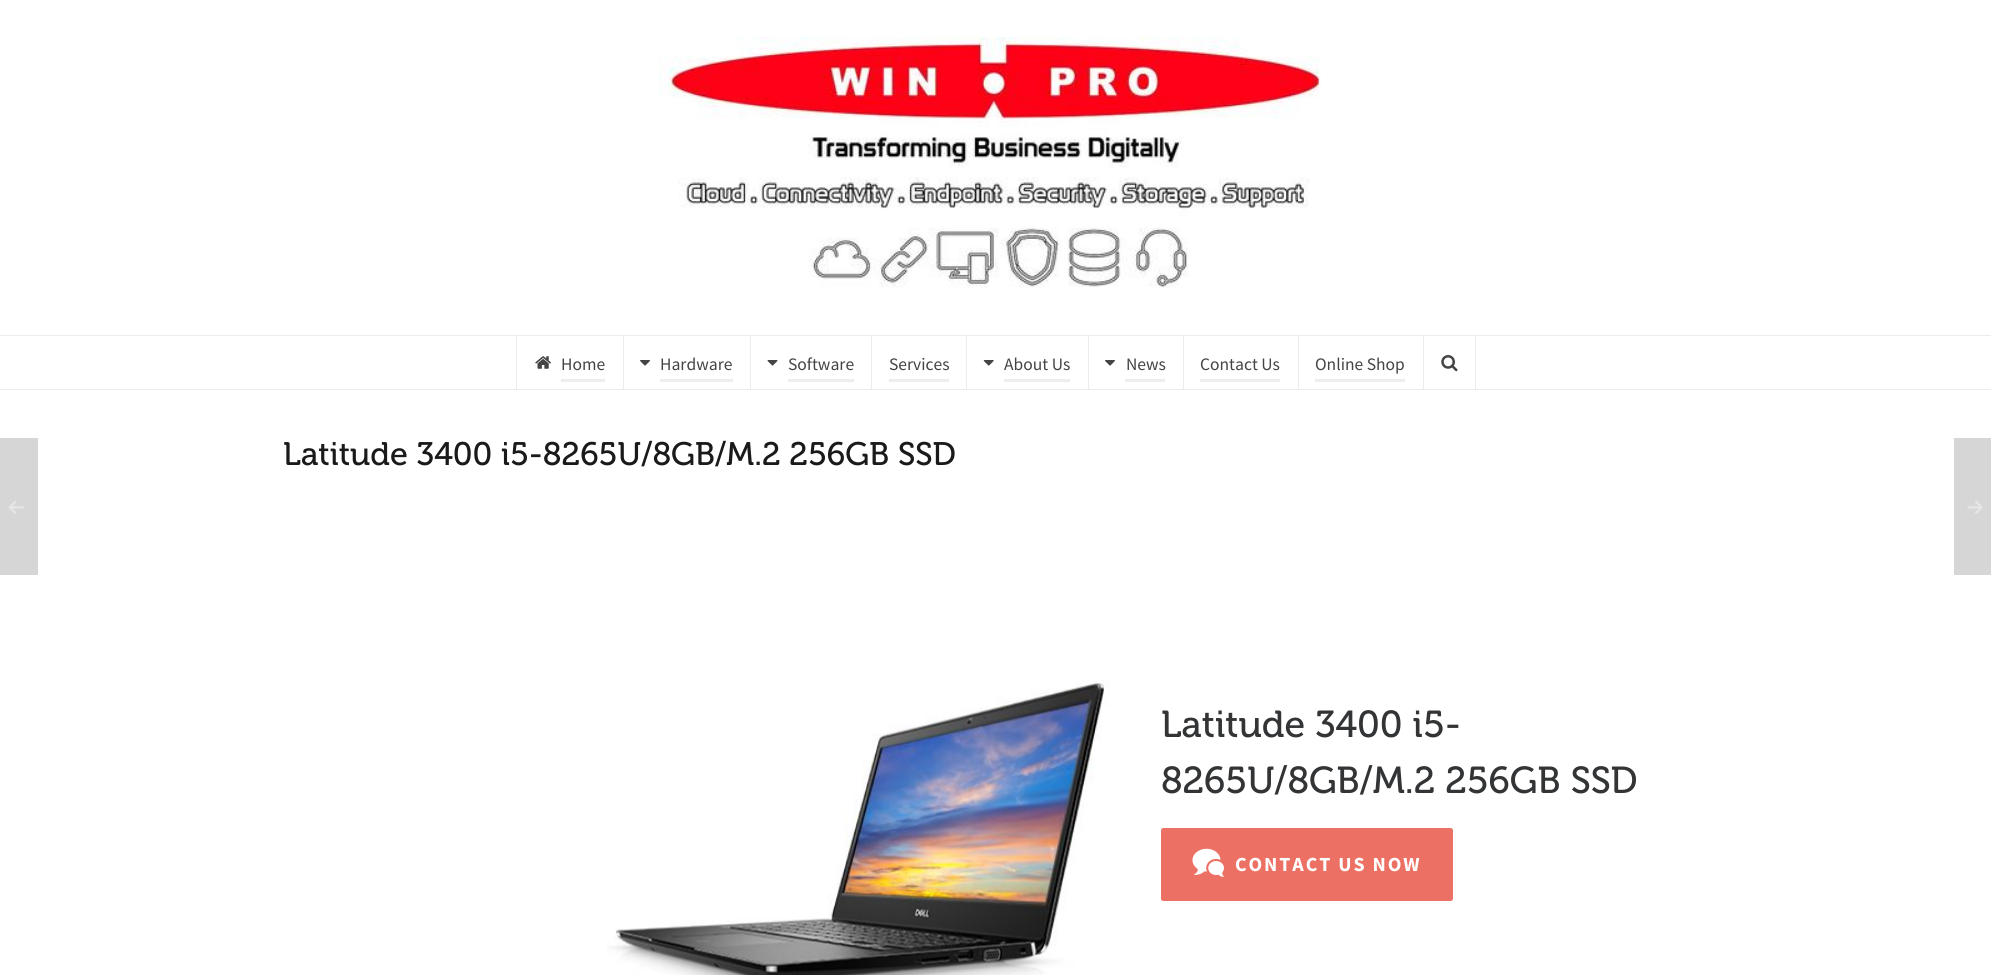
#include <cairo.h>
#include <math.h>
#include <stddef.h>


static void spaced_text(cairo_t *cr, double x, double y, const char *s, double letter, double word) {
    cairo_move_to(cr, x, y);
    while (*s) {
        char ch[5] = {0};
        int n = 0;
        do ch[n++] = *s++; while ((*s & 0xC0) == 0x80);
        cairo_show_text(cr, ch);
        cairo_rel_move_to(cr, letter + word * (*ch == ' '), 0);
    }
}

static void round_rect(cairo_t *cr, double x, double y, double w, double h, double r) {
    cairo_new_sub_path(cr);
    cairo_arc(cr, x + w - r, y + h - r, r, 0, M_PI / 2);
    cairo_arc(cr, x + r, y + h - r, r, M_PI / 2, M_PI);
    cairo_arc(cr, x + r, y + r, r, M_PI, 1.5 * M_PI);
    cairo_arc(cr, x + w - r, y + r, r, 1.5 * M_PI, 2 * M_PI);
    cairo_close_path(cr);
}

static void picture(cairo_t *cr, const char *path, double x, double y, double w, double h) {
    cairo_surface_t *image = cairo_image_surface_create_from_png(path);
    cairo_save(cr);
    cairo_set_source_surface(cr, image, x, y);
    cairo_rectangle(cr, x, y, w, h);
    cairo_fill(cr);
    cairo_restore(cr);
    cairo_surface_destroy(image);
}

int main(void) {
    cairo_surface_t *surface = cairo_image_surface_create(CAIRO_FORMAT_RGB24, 1991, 975);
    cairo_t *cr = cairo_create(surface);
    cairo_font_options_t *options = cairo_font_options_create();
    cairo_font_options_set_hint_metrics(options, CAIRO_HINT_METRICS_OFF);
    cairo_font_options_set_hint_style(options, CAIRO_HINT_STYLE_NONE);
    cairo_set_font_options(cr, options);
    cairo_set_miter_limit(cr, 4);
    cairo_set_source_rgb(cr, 1, 1, 1);
    cairo_paint(cr);
    cairo_set_source_rgb(cr, 0.922, 0.922, 0.922);
    cairo_rectangle(cr, 0, 389, 1991, 1);
    cairo_fill(cr);
    picture(cr, "img1.png", 659, 37, 662, 251);
    cairo_rectangle(cr, 0, 335, 1991, 1);
    cairo_fill(cr);
    cairo_rectangle(cr, 623, 336, 1, 53);
    cairo_fill(cr);
    cairo_rectangle(cr, 516, 336, 1, 53);
    cairo_fill(cr);
    picture(cr, "img2.png", 535, 356, 16, 13);
    cairo_select_font_face(cr, "Source Sans Pro", CAIRO_FONT_SLANT_NORMAL, CAIRO_FONT_WEIGHT_NORMAL);
    cairo_set_font_size(cr, 17.5);
    cairo_set_source_rgb(cr, 0.267, 0.267, 0.267);
    cairo_move_to(cr, 561, 370);
    cairo_show_text(cr, "Home");
    cairo_set_source_rgb(cr, 0.933, 0.933, 0.933);
    cairo_rectangle(cr, 561, 379, 44, 3);
    cairo_fill(cr);
    cairo_set_source_rgb(cr, 0.922, 0.922, 0.922);
    cairo_rectangle(cr, 750, 336, 1, 53);
    cairo_fill(cr);
    picture(cr, "img3.png", 640, 360, 10, 6);
    cairo_set_source_rgb(cr, 0.267, 0.267, 0.267);
    cairo_move_to(cr, 660, 370);
    cairo_show_text(cr, "Hardware");
    cairo_set_source_rgb(cr, 0.933, 0.933, 0.933);
    cairo_rectangle(cr, 660, 379, 73, 3);
    cairo_fill(cr);
    cairo_set_source_rgb(cr, 0.922, 0.922, 0.922);
    cairo_rectangle(cr, 871, 336, 1, 53);
    cairo_fill(cr);
    picture(cr, "img4.png", 767, 360, 11, 6);
    cairo_set_source_rgb(cr, 0.267, 0.267, 0.267);
    cairo_move_to(cr, 788, 370);
    cairo_show_text(cr, "Software");
    cairo_set_source_rgb(cr, 0.933, 0.933, 0.933);
    cairo_rectangle(cr, 788, 379, 66, 3);
    cairo_fill(cr);
    cairo_set_source_rgb(cr, 0.922, 0.922, 0.922);
    cairo_rectangle(cr, 966, 336, 1, 53);
    cairo_fill(cr);
    cairo_set_source_rgb(cr, 0.267, 0.267, 0.267);
    cairo_move_to(cr, 889, 370);
    cairo_show_text(cr, "Services");
    cairo_set_source_rgb(cr, 0.933, 0.933, 0.933);
    cairo_rectangle(cr, 889, 379, 60, 3);
    cairo_fill(cr);
    cairo_set_source_rgb(cr, 0.922, 0.922, 0.922);
    cairo_rectangle(cr, 1088, 336, 1, 53);
    cairo_fill(cr);
    picture(cr, "img5.png", 983, 360, 11, 6);
    cairo_set_source_rgb(cr, 0.267, 0.267, 0.267);
    cairo_move_to(cr, 1004, 370);
    cairo_show_text(cr, "About Us");
    cairo_set_source_rgb(cr, 0.933, 0.933, 0.933);
    cairo_rectangle(cr, 1004, 379, 66, 3);
    cairo_fill(cr);
    cairo_set_source_rgb(cr, 0.922, 0.922, 0.922);
    cairo_rectangle(cr, 1183, 336, 1, 53);
    cairo_fill(cr);
    picture(cr, "img3.png", 1105, 360, 10, 6);
    cairo_set_source_rgb(cr, 0.267, 0.267, 0.267);
    cairo_move_to(cr, 1126, 370);
    cairo_show_text(cr, "News");
    cairo_set_source_rgb(cr, 0.933, 0.933, 0.933);
    cairo_rectangle(cr, 1125, 379, 40, 3);
    cairo_fill(cr);
    cairo_set_source_rgb(cr, 0.922, 0.922, 0.922);
    cairo_rectangle(cr, 1298, 336, 1, 53);
    cairo_fill(cr);
    cairo_set_source_rgb(cr, 0.267, 0.267, 0.267);
    cairo_move_to(cr, 1200, 370);
    cairo_show_text(cr, "Contact Us");
    cairo_set_source_rgb(cr, 0.933, 0.933, 0.933);
    cairo_rectangle(cr, 1200, 379, 80, 3);
    cairo_fill(cr);
    cairo_set_source_rgb(cr, 0.922, 0.922, 0.922);
    cairo_rectangle(cr, 1423, 336, 1, 53);
    cairo_fill(cr);
    cairo_set_source_rgb(cr, 0.267, 0.267, 0.267);
    cairo_move_to(cr, 1315, 370);
    cairo_show_text(cr, "Online Shop");
    cairo_set_source_rgb(cr, 0.933, 0.933, 0.933);
    cairo_rectangle(cr, 1315, 379, 90, 3);
    cairo_fill(cr);
    cairo_set_source_rgb(cr, 0.922, 0.922, 0.922);
    cairo_rectangle(cr, 1475, 336, 1, 53);
    cairo_fill(cr);
    picture(cr, "img6.png", 1441, 355, 17, 17);
    cairo_set_source_rgb(cr, 0.839, 0.839, 0.839);
    cairo_rectangle(cr, 0, 438, 38, 137);
    cairo_fill(cr);
    picture(cr, "img7.png", 8, 501, 16, 13);
    cairo_rectangle(cr, 1954, 438, 37, 137);
    cairo_fill(cr);
    picture(cr, "img8.png", 1967, 501, 16, 13);
    cairo_select_font_face(cr, "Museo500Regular", CAIRO_FONT_SLANT_NORMAL, CAIRO_FONT_WEIGHT_NORMAL);
    cairo_set_font_size(cr, 32.5);
    cairo_set_source_rgb(cr, 0.102, 0.102, 0.102);
    cairo_move_to(cr, 283, 465);
    cairo_show_text(cr, "Latitude 3400 i5-8265U/8GB/M.2 256GB SSD");
    picture(cr, "img9.png", 607, 680, 503, 295);
    cairo_set_font_size(cr, 37.5);
    cairo_set_source_rgb(cr, 0.196, 0.204, 0.212);
    cairo_move_to(cr, 1161, 737);
    cairo_show_text(cr, "Latitude 3400 i5-");
    cairo_move_to(cr, 1161, 793);
    cairo_show_text(cr, "8265U/8GB/M.2 256GB SSD");
    cairo_set_source_rgb(cr, 0.925, 0.439, 0.388);
    round_rect(cr, 1161, 828, 292, 73, 2.5);
    cairo_fill(cr);
    picture(cr, "img10.png", 1192, 848, 32, 29);
    cairo_select_font_face(cr, "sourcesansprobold", CAIRO_FONT_SLANT_NORMAL, CAIRO_FONT_WEIGHT_BOLD);
    cairo_set_font_size(cr, 20);
    cairo_set_source_rgb(cr, 1, 1, 1);
    spaced_text(cr, 1235, 871, "CONTACT US NOW", 1.9, 0);
    cairo_surface_write_to_png(surface, "page.png");
    cairo_font_options_destroy(options);
    cairo_destroy(cr);
    cairo_surface_destroy(surface);
    return 0;
}
